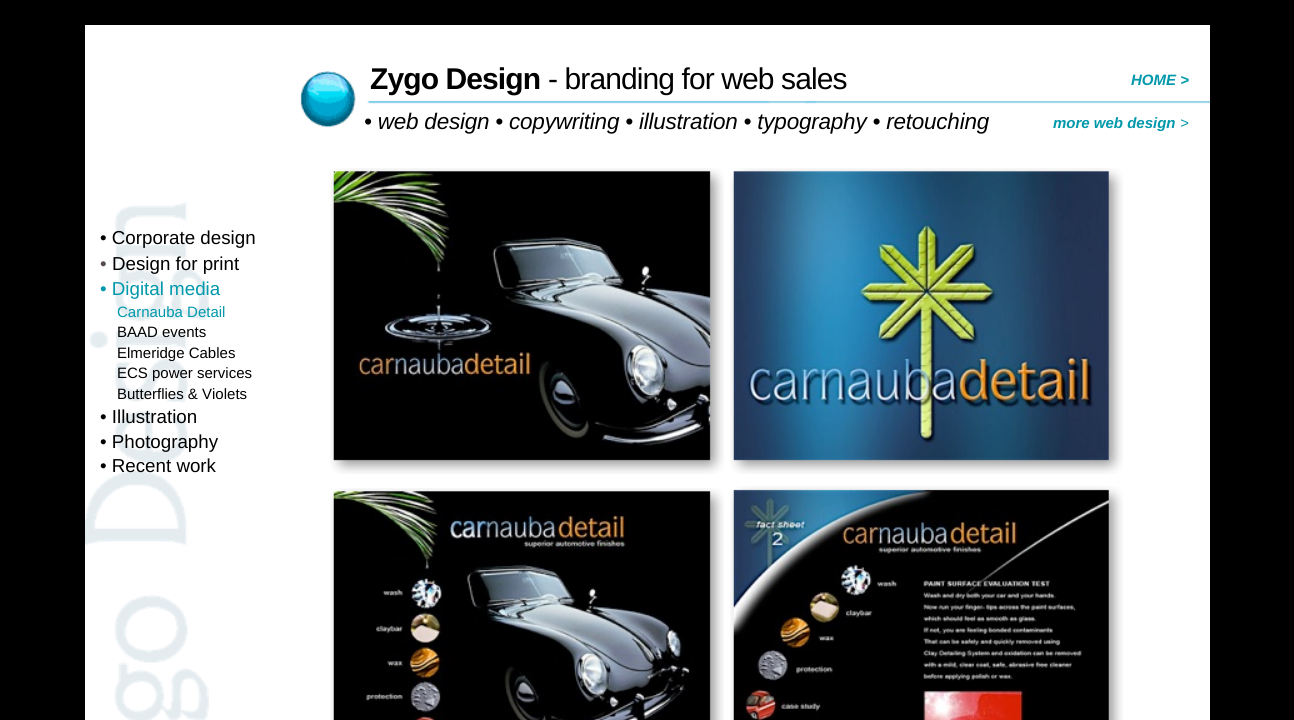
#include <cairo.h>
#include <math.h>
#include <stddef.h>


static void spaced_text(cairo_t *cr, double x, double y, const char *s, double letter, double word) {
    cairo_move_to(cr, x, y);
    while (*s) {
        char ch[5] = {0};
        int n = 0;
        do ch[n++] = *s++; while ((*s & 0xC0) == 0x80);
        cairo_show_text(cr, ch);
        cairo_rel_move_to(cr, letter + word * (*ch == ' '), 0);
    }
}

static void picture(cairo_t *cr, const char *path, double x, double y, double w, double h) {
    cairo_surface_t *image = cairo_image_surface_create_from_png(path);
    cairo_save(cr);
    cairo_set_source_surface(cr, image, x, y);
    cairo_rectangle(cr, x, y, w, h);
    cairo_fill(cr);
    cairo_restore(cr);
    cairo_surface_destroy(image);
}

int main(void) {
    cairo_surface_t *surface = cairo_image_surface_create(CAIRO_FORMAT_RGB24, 1294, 720);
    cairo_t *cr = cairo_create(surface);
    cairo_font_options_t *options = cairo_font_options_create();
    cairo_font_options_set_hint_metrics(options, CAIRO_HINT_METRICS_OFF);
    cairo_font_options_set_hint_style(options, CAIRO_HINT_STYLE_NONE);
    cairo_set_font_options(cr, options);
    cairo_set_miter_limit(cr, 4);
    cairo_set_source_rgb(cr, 0, 0, 0);
    cairo_paint(cr);
    cairo_set_source_rgb(cr, 1, 1, 1);
    cairo_rectangle(cr, 85, 25, 1125, 695);
    cairo_fill(cr);
    picture(cr, "img2.png", 85, 101, 1125, 619);
    picture(cr, "img1.png", 300, 71, 56, 57);
    cairo_select_font_face(cr, "Liberation Sans", CAIRO_FONT_SLANT_NORMAL, CAIRO_FONT_WEIGHT_BOLD);
    cairo_set_font_size(cr, 30);
    cairo_set_source_rgb(cr, 0, 0, 0);
    spaced_text(cr, 370, 89, "Zygo Design", -0.9, 0);
    cairo_select_font_face(cr, "Liberation Sans", CAIRO_FONT_SLANT_NORMAL, CAIRO_FONT_WEIGHT_NORMAL);
    spaced_text(cr, 548, 89, "- branding for web sales", -0.9, 0);
    cairo_select_font_face(cr, "Liberation Sans", CAIRO_FONT_SLANT_ITALIC, CAIRO_FONT_WEIGHT_BOLD);
    cairo_set_font_size(cr, 15);
    cairo_set_source_rgb(cr, 0, 0.596, 0.671);
    cairo_move_to(cr, 1131, 85);
    cairo_show_text(cr, "HOME >");
    cairo_select_font_face(cr, "Liberation Sans", CAIRO_FONT_SLANT_ITALIC, CAIRO_FONT_WEIGHT_NORMAL);
    cairo_set_font_size(cr, 22.5);
    cairo_set_source_rgb(cr, 0, 0, 0);
    spaced_text(cr, 364, 129, "• web design • copywriting • illustration • typography • retouching", -0.22, 0);
    cairo_select_font_face(cr, "Liberation Sans", CAIRO_FONT_SLANT_ITALIC, CAIRO_FONT_WEIGHT_BOLD);
    cairo_set_font_size(cr, 15);
    cairo_set_source_rgb(cr, 0, 0.596, 0.671);
    cairo_move_to(cr, 1053, 128);
    cairo_show_text(cr, "more web design");
    cairo_select_font_face(cr, "Liberation Sans", CAIRO_FONT_SLANT_ITALIC, CAIRO_FONT_WEIGHT_NORMAL);
    cairo_move_to(cr, 1180, 128);
    cairo_show_text(cr, ">");
    cairo_select_font_face(cr, "Liberation Sans", CAIRO_FONT_SLANT_NORMAL, CAIRO_FONT_WEIGHT_NORMAL);
    cairo_set_font_size(cr, 18.75);
    cairo_set_source_rgb(cr, 0, 0, 0);
    cairo_move_to(cr, 100, 244);
    cairo_show_text(cr, "• Corporate design");
    cairo_set_source_rgb(cr, 0.345, 0.302, 0.302);
    cairo_move_to(cr, 100, 270);
    cairo_show_text(cr, "•");
    cairo_set_source_rgb(cr, 0, 0, 0);
    cairo_move_to(cr, 112, 270);
    cairo_show_text(cr, "Design for print");
    cairo_set_source_rgb(cr, 0, 0.596, 0.671);
    cairo_move_to(cr, 100, 295);
    cairo_show_text(cr, "• Digital media");
    cairo_set_font_size(cr, 15);
    cairo_move_to(cr, 117, 317);
    cairo_show_text(cr, "Carnauba Detail");
    cairo_set_source_rgb(cr, 0, 0, 0);
    cairo_move_to(cr, 117, 337);
    cairo_show_text(cr, "BAAD events");
    cairo_move_to(cr, 117, 358);
    cairo_show_text(cr, "Elmeridge Cables");
    cairo_move_to(cr, 117, 378);
    cairo_show_text(cr, "ECS power services");
    cairo_move_to(cr, 117, 399);
    cairo_show_text(cr, "Butterflies & Violets");
    cairo_set_font_size(cr, 18.75);
    cairo_move_to(cr, 100, 423);
    cairo_show_text(cr, "• Illustration");
    cairo_move_to(cr, 100, 448);
    cairo_show_text(cr, "• Photography");
    cairo_move_to(cr, 100, 472);
    cairo_show_text(cr, "• Recent work");
    picture(cr, "img3.png", 330, 168, 394, 306);
    picture(cr, "img4.png", 730, 168, 393, 306);
    picture(cr, "img5.png", 330, 488, 394, 232);
    picture(cr, "img6.png", 730, 486, 393, 234);
    cairo_surface_write_to_png(surface, "page.png");
    cairo_font_options_destroy(options);
    cairo_destroy(cr);
    cairo_surface_destroy(surface);
    return 0;
}
